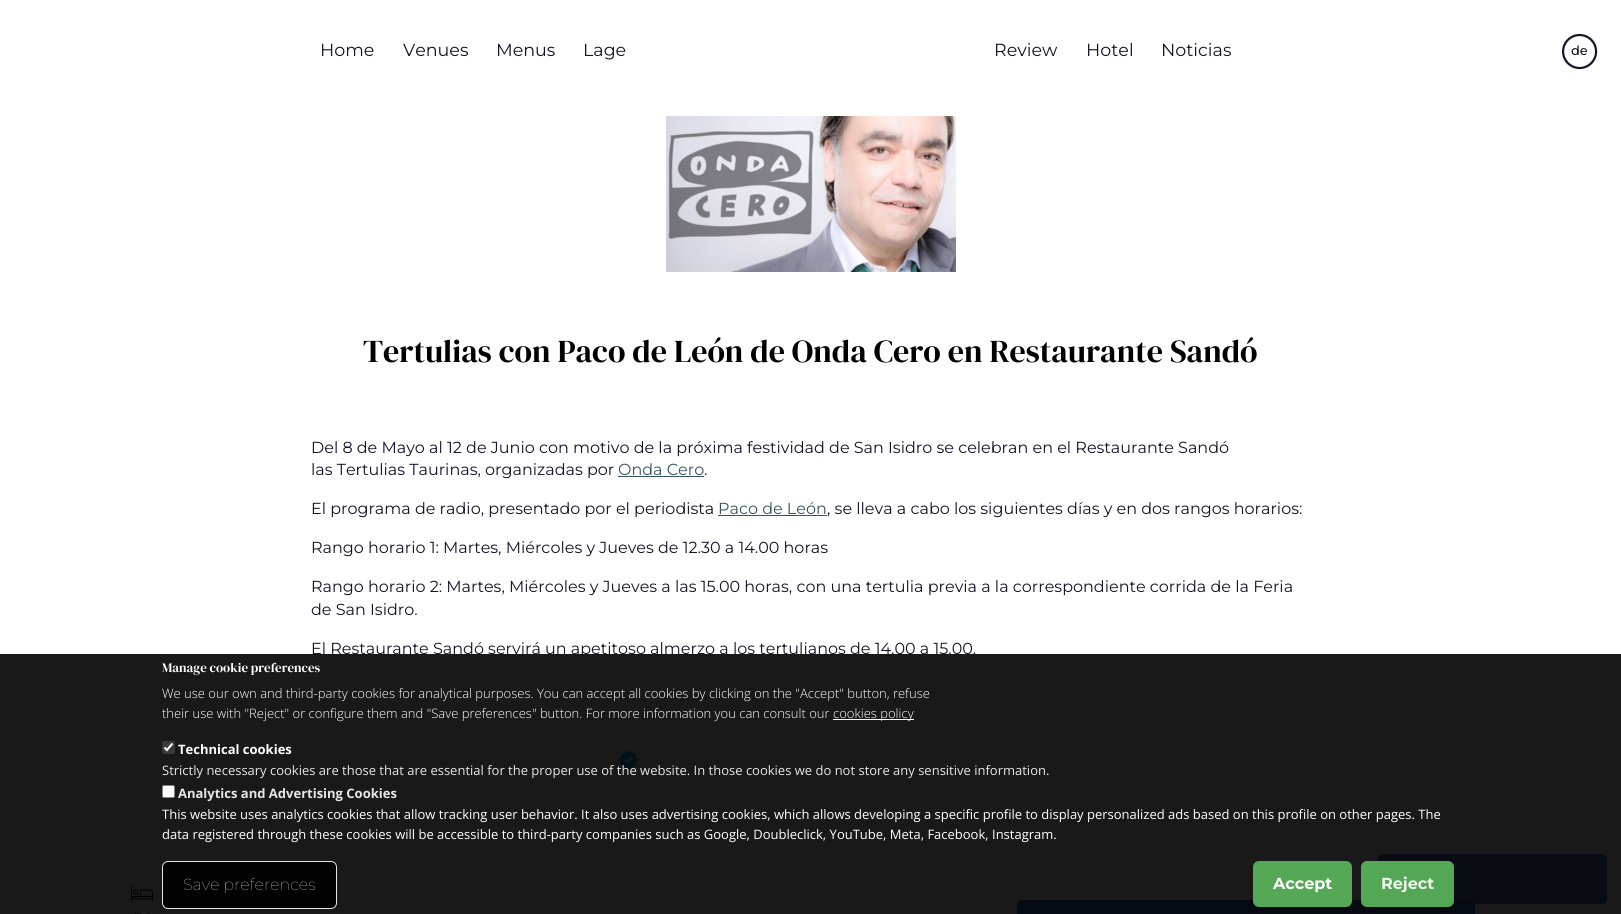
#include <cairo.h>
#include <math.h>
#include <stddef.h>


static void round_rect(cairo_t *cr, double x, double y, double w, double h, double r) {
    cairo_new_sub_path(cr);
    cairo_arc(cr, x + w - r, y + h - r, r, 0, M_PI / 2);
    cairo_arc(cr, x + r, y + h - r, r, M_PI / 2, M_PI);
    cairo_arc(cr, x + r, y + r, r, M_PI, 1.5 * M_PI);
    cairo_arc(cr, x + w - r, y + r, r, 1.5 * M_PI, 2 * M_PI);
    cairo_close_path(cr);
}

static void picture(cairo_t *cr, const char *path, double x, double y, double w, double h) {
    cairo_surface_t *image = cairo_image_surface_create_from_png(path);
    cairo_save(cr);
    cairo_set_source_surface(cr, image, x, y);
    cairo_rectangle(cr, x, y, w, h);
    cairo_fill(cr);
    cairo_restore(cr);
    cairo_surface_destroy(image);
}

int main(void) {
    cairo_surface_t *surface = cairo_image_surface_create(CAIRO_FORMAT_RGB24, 1621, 914);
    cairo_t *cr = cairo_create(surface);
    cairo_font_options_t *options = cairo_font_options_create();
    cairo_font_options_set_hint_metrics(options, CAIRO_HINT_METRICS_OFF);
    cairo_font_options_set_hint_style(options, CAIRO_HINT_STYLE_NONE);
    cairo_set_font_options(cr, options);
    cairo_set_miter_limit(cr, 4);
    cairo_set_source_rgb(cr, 1, 1, 1);
    cairo_paint(cr);
    cairo_select_font_face(cr, "Montserrat", CAIRO_FONT_SLANT_NORMAL, CAIRO_FONT_WEIGHT_NORMAL);
    cairo_set_font_size(cr, 17.5);
    cairo_set_source_rgb(cr, 0.09, 0.078, 0.173);
    cairo_move_to(cr, 320, 56);
    cairo_show_text(cr, "Home");
    cairo_move_to(cr, 403, 56);
    cairo_show_text(cr, "Venues");
    cairo_move_to(cr, 496, 56);
    cairo_show_text(cr, "Menus");
    cairo_move_to(cr, 583, 56);
    cairo_show_text(cr, "Lage");
    cairo_move_to(cr, 994, 56);
    cairo_show_text(cr, "Review");
    cairo_move_to(cr, 1086, 56);
    cairo_show_text(cr, "Hotel");
    cairo_move_to(cr, 1161, 56);
    cairo_show_text(cr, "Noticias");
    picture(cr, "img1.png", 1562, 33, 36, 37);
    cairo_select_font_face(cr, "Montserrat Medium", CAIRO_FONT_SLANT_NORMAL, CAIRO_FONT_WEIGHT_NORMAL);
    cairo_set_font_size(cr, 13);
    cairo_move_to(cr, 1571, 55);
    cairo_show_text(cr, "de");
    picture(cr, "img2.png", 666, 116, 290, 156);
    cairo_select_font_face(cr, "DM Serif Display", CAIRO_FONT_SLANT_NORMAL, CAIRO_FONT_WEIGHT_NORMAL);
    cairo_set_font_size(cr, 32);
    cairo_set_source_rgb(cr, 0, 0, 0);
    cairo_move_to(cr, 363, 362);
    cairo_show_text(cr, "Tertulias con Paco de León de Onda Cero en Restaurante Sandó");
    cairo_select_font_face(cr, "Montserrat", CAIRO_FONT_SLANT_NORMAL, CAIRO_FONT_WEIGHT_NORMAL);
    cairo_set_font_size(cr, 16);
    cairo_set_source_rgb(cr, 0.09, 0.078, 0.173);
    cairo_move_to(cr, 311, 453);
    cairo_show_text(cr, "Del 8 de Mayo al 12 de Junio con motivo de la próxima festividad de San Isidro se celebran en el Restaurante Sandó");
    cairo_move_to(cr, 311, 475);
    cairo_show_text(cr, "las Tertulias Taurinas, organizadas por");
    cairo_set_source_rgb(cr, 0.22, 0.333, 0.408);
    cairo_move_to(cr, 618, 475);
    cairo_show_text(cr, "Onda Cero");
    cairo_rectangle(cr, 618, 476, 86, 1);
    cairo_fill(cr);
    cairo_set_source_rgb(cr, 0.09, 0.078, 0.173);
    cairo_move_to(cr, 704, 475);
    cairo_show_text(cr, ".");
    cairo_move_to(cr, 311, 514);
    cairo_show_text(cr, "El programa de radio, presentado por el periodista");
    cairo_set_source_rgb(cr, 0.22, 0.333, 0.408);
    cairo_move_to(cr, 718, 514);
    cairo_show_text(cr, "Paco de León");
    cairo_rectangle(cr, 718, 515, 109, 1);
    cairo_fill(cr);
    cairo_set_source_rgb(cr, 0.09, 0.078, 0.173);
    cairo_move_to(cr, 827, 514);
    cairo_show_text(cr, ", se lleva a cabo los siguientes días y en dos rangos horarios:");
    cairo_move_to(cr, 311, 553);
    cairo_show_text(cr, "Rango horario 1: Martes, Miércoles y Jueves de 12.30 a 14.00 horas");
    cairo_move_to(cr, 311, 592);
    cairo_show_text(cr, "Rango horario 2: Martes, Miércoles y Jueves a las 15.00 horas, con una tertulia previa a la correspondiente corrida de la Feria");
    cairo_move_to(cr, 311, 615);
    cairo_show_text(cr, "de San Isidro.");
    cairo_move_to(cr, 311, 654);
    cairo_show_text(cr, "El Restaurante Sandó servirá un apetitoso almerzo a los tertulianos de 14.00 a 15.00.");
    picture(cr, "img3.png", 619, 751, 19, 19);
    cairo_set_source_rgb(cr, 0.871, 0.871, 0.871);
    cairo_rectangle(cr, 131, 866, 1360, 1);
    cairo_fill(cr);
    picture(cr, "img4.png", 131, 886, 22, 16);
    picture(cr, "img5.png", 135, 913, 15, 1);
    cairo_set_source_rgb(cr, 0.212, 0.369, 0.663);
    round_rect(cr, 1017, 900, 458, 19, 5);
    cairo_fill(cr);
    cairo_set_source_rgba(cr, 0.212, 0.369, 0.663, 0.85);
    round_rect(cr, 1378, 854, 229, 50, 5);
    cairo_fill(cr);
    picture(cr, "img6.png", 1402, 869, 20, 16);
    cairo_set_source_rgba(cr, 0, 0, 0, 0.9);
    cairo_rectangle(cr, 0, 654, 1621, 260);
    cairo_fill(cr);
    cairo_select_font_face(cr, "DM Serif Display", CAIRO_FONT_SLANT_NORMAL, CAIRO_FONT_WEIGHT_NORMAL);
    cairo_set_font_size(cr, 13);
    cairo_set_source_rgb(cr, 1, 1, 1);
    cairo_move_to(cr, 162, 672);
    cairo_show_text(cr, "Manage cookie preferences");
    cairo_select_font_face(cr, "Open Sans Light", CAIRO_FONT_SLANT_NORMAL, CAIRO_FONT_WEIGHT_NORMAL);
    cairo_move_to(cr, 162, 698);
    cairo_show_text(cr, "We use our own and third-party cookies for analytical purposes. You can accept all cookies by clicking on the \"Accept\" button, refuse");
    cairo_move_to(cr, 162, 718);
    cairo_show_text(cr, "their use with \"Reject\" or configure them and \"Save preferences\" button. For more information you can consult our");
    cairo_rectangle(cr, 833, 719, 81, 1);
    cairo_fill(cr);
    cairo_move_to(cr, 833, 718);
    cairo_show_text(cr, "cookies policy");
    cairo_set_source_rgb(cr, 0.224, 0.224, 0.224);
    round_rect(cr, 162, 741, 13, 13, 2);
    cairo_fill(cr);
    cairo_new_path(cr);
    cairo_move_to(cr, 164.5, 747.5);
    cairo_line_to(cr, 167, 750);
    cairo_line_to(cr, 172.5, 743.5);
    cairo_set_source_rgb(cr, 1, 1, 1);
    cairo_set_line_width(cr, 2.1);
    cairo_stroke(cr);
    cairo_select_font_face(cr, "Open Sans", CAIRO_FONT_SLANT_NORMAL, CAIRO_FONT_WEIGHT_BOLD);
    cairo_move_to(cr, 178, 754);
    cairo_show_text(cr, "Technical cookies");
    cairo_select_font_face(cr, "Open Sans", CAIRO_FONT_SLANT_NORMAL, CAIRO_FONT_WEIGHT_NORMAL);
    cairo_set_source_rgb(cr, 0.902, 0.902, 0.902);
    cairo_move_to(cr, 162, 775);
    cairo_show_text(cr, "Strictly necessary cookies are those that are essential for the proper use of the website. In those cookies we do not store any sensitive information.");
    cairo_set_source_rgb(cr, 1, 1, 1);
    round_rect(cr, 162.5, 785.5, 12, 12, 1.5);
    cairo_fill_preserve(cr);
    cairo_set_source_rgb(cr, 0.518, 0.518, 0.518);
    cairo_set_line_width(cr, 1);
    cairo_stroke(cr);
    cairo_select_font_face(cr, "Open Sans", CAIRO_FONT_SLANT_NORMAL, CAIRO_FONT_WEIGHT_BOLD);
    cairo_set_source_rgb(cr, 0.902, 0.902, 0.902);
    cairo_move_to(cr, 178, 798);
    cairo_show_text(cr, "Analytics and Advertising Cookies");
    cairo_select_font_face(cr, "Open Sans", CAIRO_FONT_SLANT_NORMAL, CAIRO_FONT_WEIGHT_NORMAL);
    cairo_set_source_rgb(cr, 1, 1, 1);
    cairo_move_to(cr, 162, 819);
    cairo_show_text(cr, "This website uses analytics cookies that allow tracking user behavior. It also uses advertising cookies, which allows developing a specific profile to display personalized ads based on this profile on other pages. The");
    cairo_move_to(cr, 162, 839);
    cairo_show_text(cr, "data registered through these cookies will be accessible to third-party companies such as Google, Doubleclick, YouTube, Meta, Facebook, Instagram.");
    cairo_set_source_rgba(cr, 0, 0, 0, 0.9);
    round_rect(cr, 162, 861, 175, 48, 6);
    cairo_fill(cr);
    round_rect(cr, 162.5, 861.5, 174, 47, 5.5);
    cairo_set_source_rgba(cr, 1, 1, 1, 0.9);
    cairo_stroke(cr);
    cairo_select_font_face(cr, "Montserrat Thin", CAIRO_FONT_SLANT_NORMAL, CAIRO_FONT_WEIGHT_NORMAL);
    cairo_set_font_size(cr, 16);
    cairo_set_source_rgb(cr, 0.902, 0.902, 0.902);
    cairo_move_to(cr, 183, 890);
    cairo_show_text(cr, "Save preferences");
    cairo_set_source_rgba(cr, 0.361, 0.722, 0.361, 0.9);
    round_rect(cr, 1253, 861, 99, 46, 6);
    cairo_fill(cr);
    cairo_select_font_face(cr, "Montserrat", CAIRO_FONT_SLANT_NORMAL, CAIRO_FONT_WEIGHT_BOLD);
    cairo_set_source_rgb(cr, 1, 1, 1);
    cairo_move_to(cr, 1273, 889);
    cairo_show_text(cr, "Accept");
    cairo_set_source_rgba(cr, 0.361, 0.722, 0.361, 0.9);
    round_rect(cr, 1361, 861, 93, 46, 6);
    cairo_fill(cr);
    cairo_set_source_rgb(cr, 0.933, 0.965, 0.933);
    cairo_move_to(cr, 1381, 889);
    cairo_show_text(cr, "Reject");
    cairo_surface_write_to_png(surface, "page.png");
    cairo_font_options_destroy(options);
    cairo_destroy(cr);
    cairo_surface_destroy(surface);
    return 0;
}
